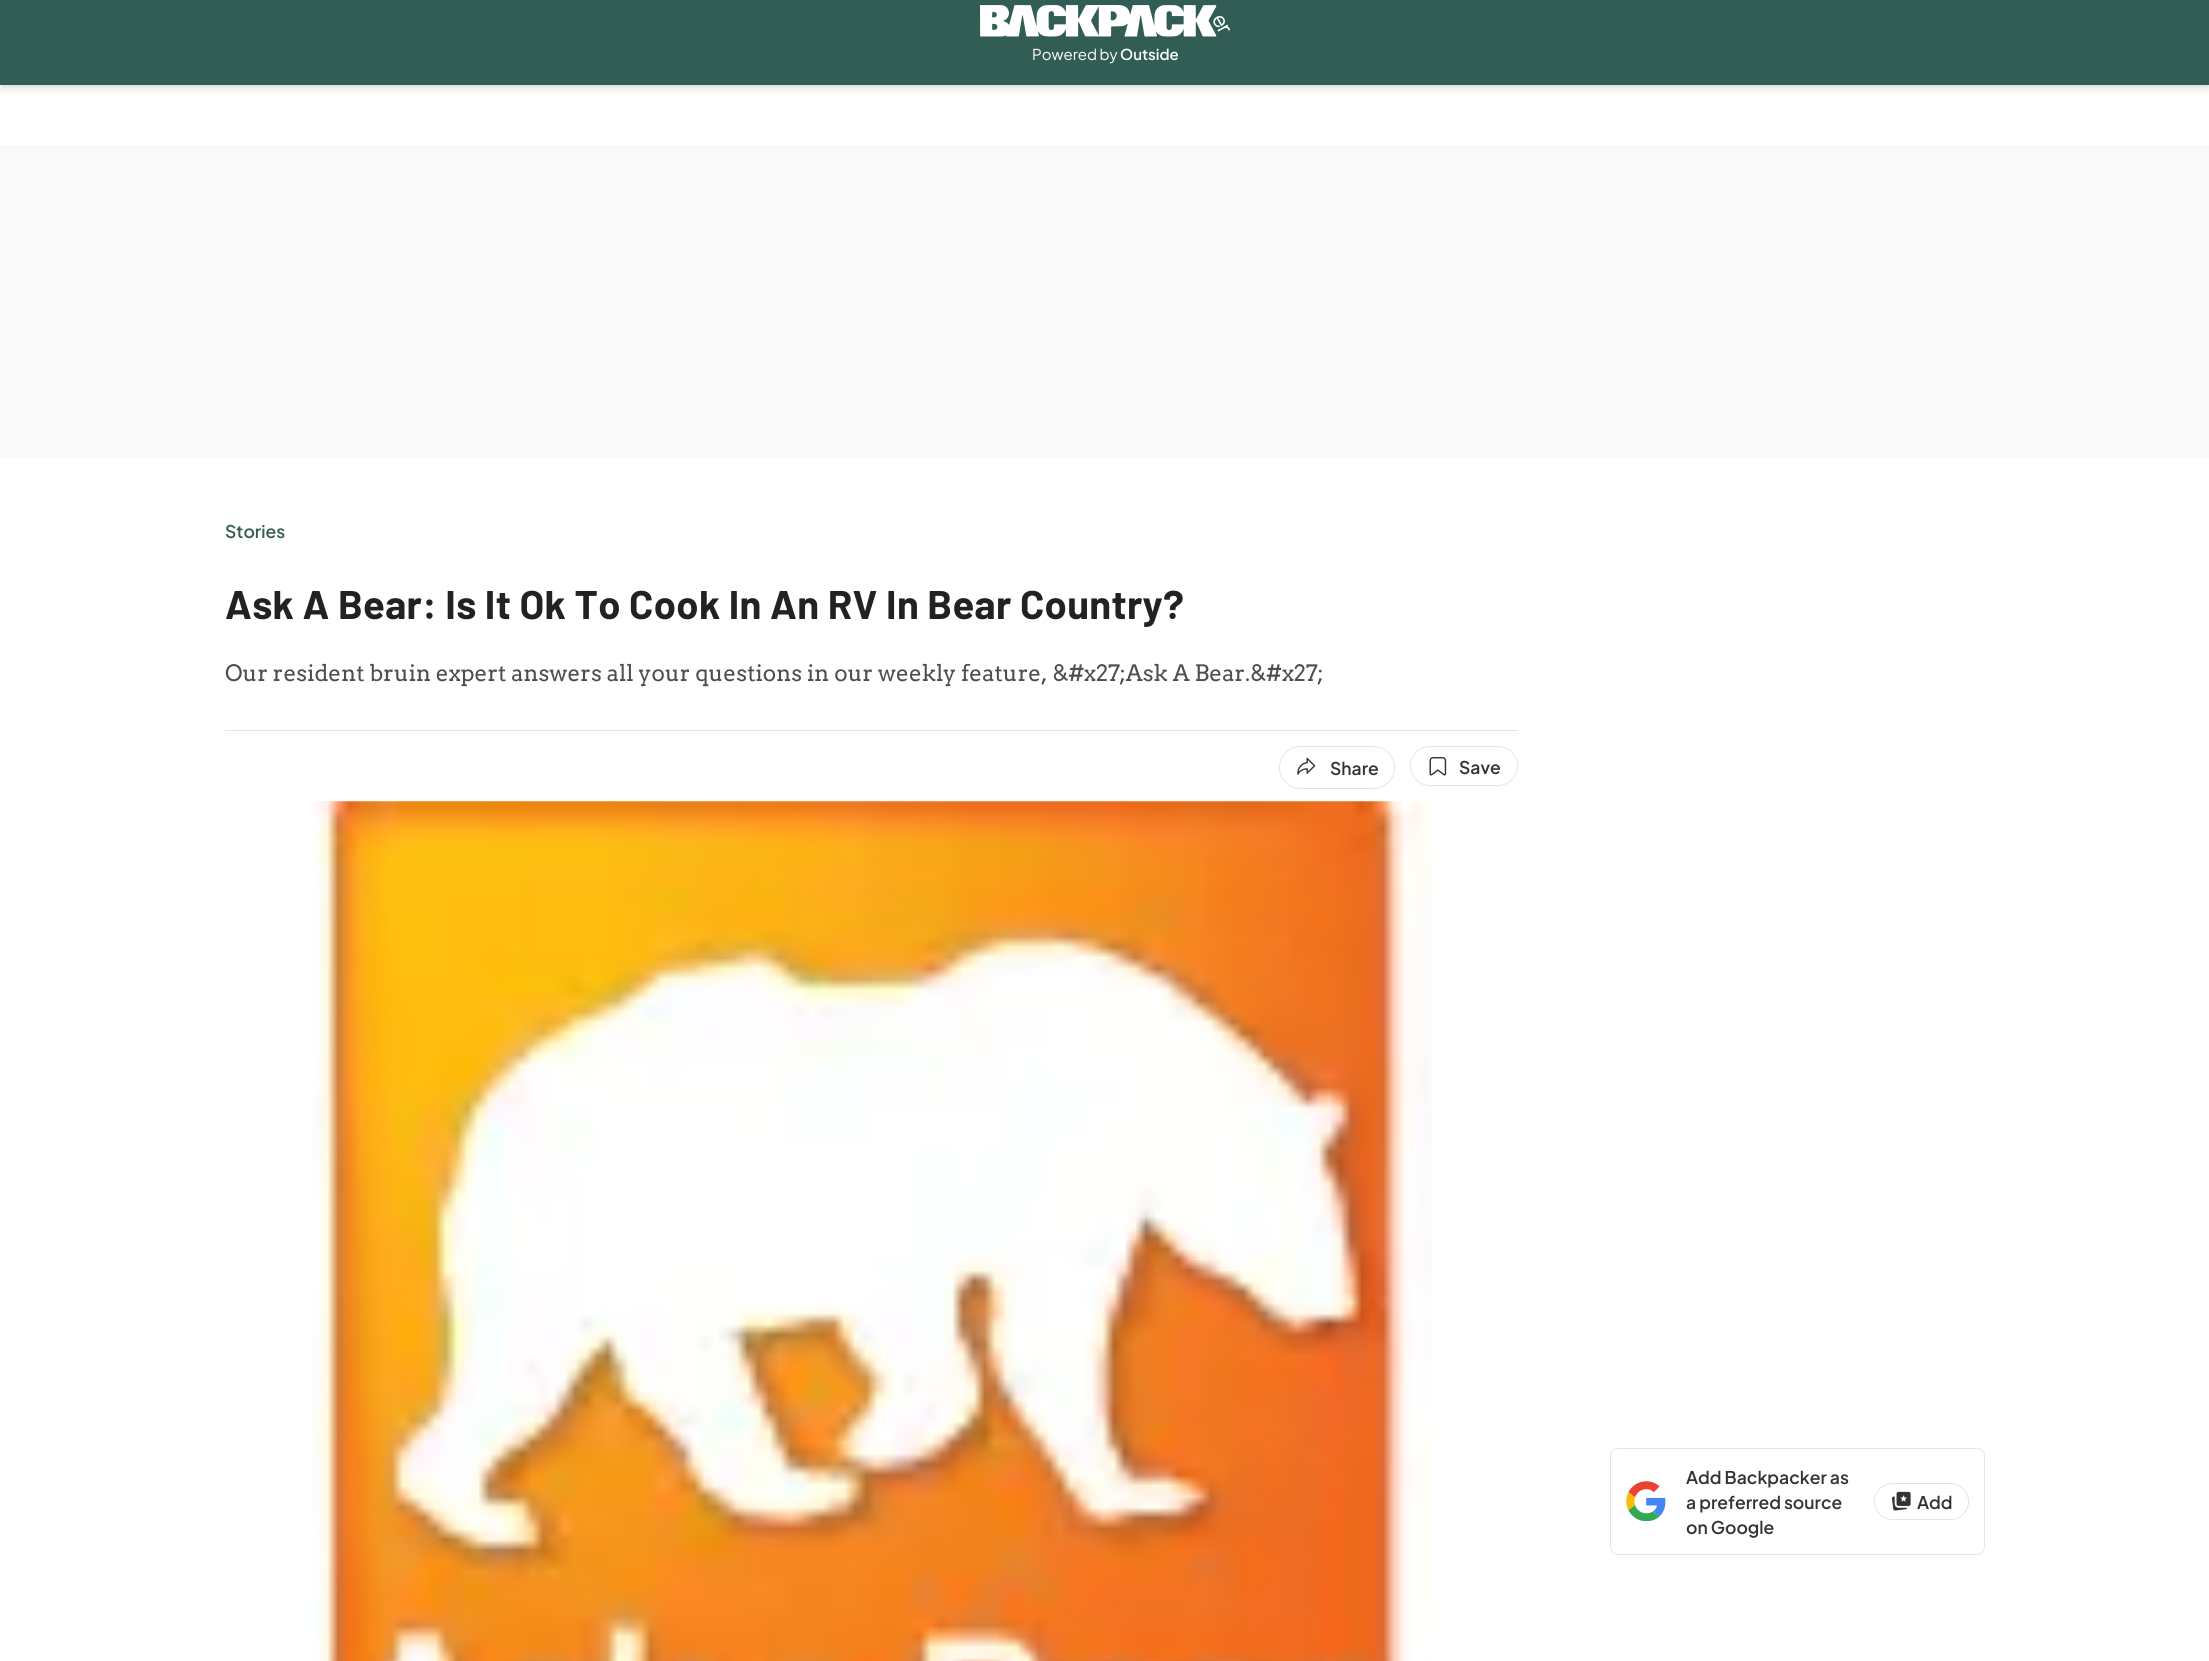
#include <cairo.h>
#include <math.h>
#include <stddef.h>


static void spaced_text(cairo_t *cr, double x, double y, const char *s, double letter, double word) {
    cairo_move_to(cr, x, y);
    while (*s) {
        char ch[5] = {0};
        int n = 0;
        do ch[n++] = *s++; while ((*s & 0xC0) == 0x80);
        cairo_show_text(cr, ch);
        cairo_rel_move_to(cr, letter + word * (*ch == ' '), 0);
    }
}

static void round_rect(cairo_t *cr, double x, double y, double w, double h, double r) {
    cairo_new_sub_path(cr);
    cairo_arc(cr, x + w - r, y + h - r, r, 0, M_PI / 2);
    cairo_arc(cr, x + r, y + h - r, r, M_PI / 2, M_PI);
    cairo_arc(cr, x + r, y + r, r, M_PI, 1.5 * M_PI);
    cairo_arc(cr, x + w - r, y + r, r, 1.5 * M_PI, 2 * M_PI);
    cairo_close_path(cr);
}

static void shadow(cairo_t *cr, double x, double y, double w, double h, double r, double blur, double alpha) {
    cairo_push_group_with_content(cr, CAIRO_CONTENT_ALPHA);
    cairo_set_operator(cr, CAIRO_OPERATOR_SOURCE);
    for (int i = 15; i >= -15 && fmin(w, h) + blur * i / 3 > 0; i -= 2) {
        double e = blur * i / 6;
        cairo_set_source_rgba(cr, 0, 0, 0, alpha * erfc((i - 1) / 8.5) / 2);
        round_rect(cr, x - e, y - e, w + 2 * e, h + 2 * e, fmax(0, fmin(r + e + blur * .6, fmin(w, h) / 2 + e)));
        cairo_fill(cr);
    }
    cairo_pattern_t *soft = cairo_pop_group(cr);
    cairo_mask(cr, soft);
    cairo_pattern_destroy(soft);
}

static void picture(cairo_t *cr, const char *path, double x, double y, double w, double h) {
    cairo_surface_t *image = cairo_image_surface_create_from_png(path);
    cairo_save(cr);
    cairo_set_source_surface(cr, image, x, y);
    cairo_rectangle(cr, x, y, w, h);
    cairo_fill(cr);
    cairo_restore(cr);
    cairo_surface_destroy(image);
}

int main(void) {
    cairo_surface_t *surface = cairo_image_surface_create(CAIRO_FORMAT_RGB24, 2209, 1661);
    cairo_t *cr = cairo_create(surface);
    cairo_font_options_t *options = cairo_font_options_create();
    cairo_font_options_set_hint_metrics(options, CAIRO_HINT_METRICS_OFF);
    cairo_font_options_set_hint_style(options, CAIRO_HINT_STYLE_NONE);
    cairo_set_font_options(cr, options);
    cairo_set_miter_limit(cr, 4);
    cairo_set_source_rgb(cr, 1, 1, 1);
    cairo_paint(cr);
    cairo_set_source_rgb(cr, 0, 0, 0);
    shadow(cr, 3, 5, 2205, 80, 0, 2.5, 0.1);
    shadow(cr, 1, 6, 2208, 83, 0, 4, 0.1);
    cairo_set_source_rgb(cr, 0.196, 0.365, 0.333);
    cairo_rectangle(cr, 0, 0, 2209, 85);
    cairo_fill(cr);
    picture(cr, "img1.png", 980, 5, 250, 32);
    cairo_select_font_face(cr, "Plus Jakarta Sans", CAIRO_FONT_SLANT_NORMAL, CAIRO_FONT_WEIGHT_NORMAL);
    cairo_set_font_size(cr, 15);
    cairo_set_source_rgb(cr, 1, 1, 1);
    cairo_move_to(cr, 1032, 60);
    cairo_show_text(cr, "Powered by");
    cairo_select_font_face(cr, "Plus Jakarta Sans SemiBold", CAIRO_FONT_SLANT_NORMAL, CAIRO_FONT_WEIGHT_NORMAL);
    cairo_move_to(cr, 1120, 60);
    cairo_show_text(cr, "Outside");
    cairo_set_source_rgb(cr, 0.976, 0.976, 0.976);
    cairo_rectangle(cr, 0, 145, 2209, 313);
    cairo_fill(cr);
    cairo_set_font_size(cr, 17.5);
    cairo_set_source_rgb(cr, 0.196, 0.365, 0.333);
    cairo_move_to(cr, 225, 538);
    cairo_show_text(cr, "Stories");
    cairo_select_font_face(cr, "Barlow", CAIRO_FONT_SLANT_NORMAL, CAIRO_FONT_WEIGHT_BOLD);
    cairo_set_font_size(cr, 40);
    cairo_set_source_rgb(cr, 0.133, 0.133, 0.133);
    spaced_text(cr, 225, 619, "Ask A Bear: Is It Ok To Cook In An RV In Bear Country?", 0.3, 0);
    cairo_select_font_face(cr, "Arvo", CAIRO_FONT_SLANT_NORMAL, CAIRO_FONT_WEIGHT_NORMAL);
    cairo_set_font_size(cr, 22.5);
    cairo_set_source_rgb(cr, 0.306, 0.306, 0.306);
    cairo_move_to(cr, 225, 681);
    cairo_show_text(cr, "Our resident bruin expert answers all your questions in our weekly feature, &#x27;Ask A Bear.&#x27;");
    cairo_set_source_rgb(cr, 0.898, 0.898, 0.898);
    cairo_rectangle(cr, 225, 730, 1293, 1);
    cairo_fill(cr);
    round_rect(cr, 1279.5, 746.5, 115, 42, 21);
    cairo_set_line_width(cr, 1);
    cairo_stroke(cr);
    picture(cr, "img2.png", 1297, 757, 19, 18);
    cairo_select_font_face(cr, "Plus Jakarta Sans SemiBold", CAIRO_FONT_SLANT_NORMAL, CAIRO_FONT_WEIGHT_NORMAL);
    cairo_set_font_size(cr, 17.5);
    cairo_set_source_rgb(cr, 0.2, 0.2, 0.2);
    cairo_move_to(cr, 1330, 775);
    cairo_show_text(cr, "Share");
    round_rect(cr, 1410.5, 746.5, 107, 39, 19.5);
    cairo_set_source_rgb(cr, 0.898, 0.898, 0.898);
    cairo_stroke(cr);
    picture(cr, "img3.png", 1429, 757, 18, 19);
    cairo_set_source_rgb(cr, 0.2, 0.2, 0.2);
    cairo_move_to(cr, 1459, 774);
    cairo_show_text(cr, "Save");
    picture(cr, "img4.png", 312, 801, 1121, 860);
    round_rect(cr, 1610.5, 1448.5, 374, 106, 7.5);
    cairo_set_source_rgb(cr, 0.898, 0.898, 0.898);
    cairo_stroke(cr);
    picture(cr, "img5.png", 1626, 1481, 40, 40);
    cairo_set_source_rgb(cr, 0.2, 0.2, 0.2);
    cairo_move_to(cr, 1686, 1484);
    cairo_show_text(cr, "Add Backpacker as");
    cairo_move_to(cr, 1686, 1509);
    cairo_show_text(cr, "a preferred source");
    cairo_move_to(cr, 1686, 1534);
    cairo_show_text(cr, "on Google");
    round_rect(cr, 1874.5, 1483.5, 94, 36, 18);
    cairo_set_source_rgb(cr, 0.898, 0.898, 0.898);
    cairo_stroke(cr);
    picture(cr, "img6.png", 1892, 1491, 19, 20);
    cairo_set_source_rgb(cr, 0.2, 0.2, 0.2);
    cairo_move_to(cr, 1917, 1509);
    cairo_show_text(cr, "Add");
    cairo_surface_write_to_png(surface, "page.png");
    cairo_font_options_destroy(options);
    cairo_destroy(cr);
    cairo_surface_destroy(surface);
    return 0;
}
